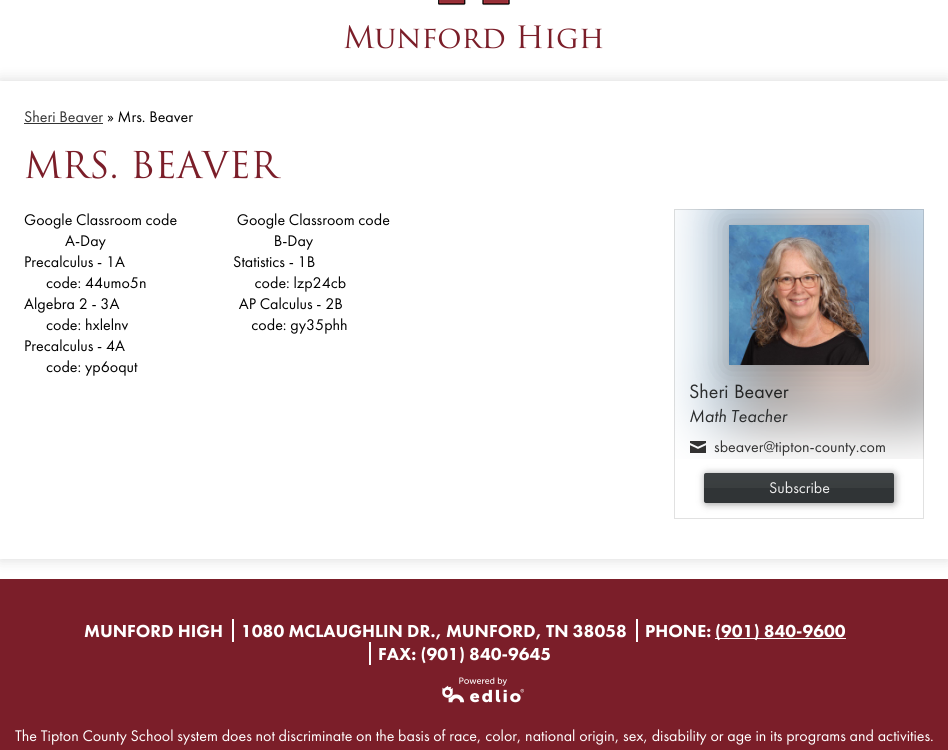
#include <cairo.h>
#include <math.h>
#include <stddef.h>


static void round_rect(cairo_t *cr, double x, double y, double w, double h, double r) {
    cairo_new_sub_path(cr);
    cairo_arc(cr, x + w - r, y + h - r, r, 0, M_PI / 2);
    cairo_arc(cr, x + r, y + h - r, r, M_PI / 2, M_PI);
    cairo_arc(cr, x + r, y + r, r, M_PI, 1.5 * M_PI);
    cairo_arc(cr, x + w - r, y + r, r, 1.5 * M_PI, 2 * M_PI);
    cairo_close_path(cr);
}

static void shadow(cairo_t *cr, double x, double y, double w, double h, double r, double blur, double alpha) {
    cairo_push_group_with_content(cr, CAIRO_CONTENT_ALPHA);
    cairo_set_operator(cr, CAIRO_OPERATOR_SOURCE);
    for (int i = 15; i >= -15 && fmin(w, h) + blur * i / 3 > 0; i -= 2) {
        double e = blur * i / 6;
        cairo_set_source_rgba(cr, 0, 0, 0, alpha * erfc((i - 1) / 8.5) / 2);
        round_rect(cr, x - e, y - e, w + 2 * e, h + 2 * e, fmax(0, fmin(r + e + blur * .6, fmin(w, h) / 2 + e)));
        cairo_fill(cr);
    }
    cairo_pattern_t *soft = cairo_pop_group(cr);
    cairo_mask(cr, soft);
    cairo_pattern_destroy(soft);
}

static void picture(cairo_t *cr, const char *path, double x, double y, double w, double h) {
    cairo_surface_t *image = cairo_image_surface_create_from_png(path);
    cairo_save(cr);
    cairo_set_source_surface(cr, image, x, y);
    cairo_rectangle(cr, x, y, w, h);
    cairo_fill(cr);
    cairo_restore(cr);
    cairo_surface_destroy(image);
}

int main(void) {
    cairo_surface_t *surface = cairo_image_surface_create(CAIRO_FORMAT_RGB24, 948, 750);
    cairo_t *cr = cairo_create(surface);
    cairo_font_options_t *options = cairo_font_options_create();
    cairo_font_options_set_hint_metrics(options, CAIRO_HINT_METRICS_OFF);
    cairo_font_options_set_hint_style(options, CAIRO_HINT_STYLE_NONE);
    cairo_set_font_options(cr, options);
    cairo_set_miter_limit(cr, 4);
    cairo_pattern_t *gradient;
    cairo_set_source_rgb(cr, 1, 1, 1);
    cairo_paint(cr);
    picture(cr, "img1.png", 438, 0, 72, 6);
    cairo_select_font_face(cr, "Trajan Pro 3", CAIRO_FONT_SLANT_NORMAL, CAIRO_FONT_WEIGHT_NORMAL);
    cairo_set_font_size(cr, 30);
    cairo_set_source_rgb(cr, 0.482, 0.118, 0.161);
    cairo_move_to(cr, 343, 48);
    cairo_show_text(cr, "Munford High");
    cairo_rectangle(cr, 0, 579, 948, 171);
    cairo_fill(cr);
    cairo_save(cr);
    cairo_set_fill_rule(cr, CAIRO_FILL_RULE_EVEN_ODD);
    cairo_new_path(cr);
    cairo_move_to(cr, 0, 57);
    cairo_line_to(cr, 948, 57);
    cairo_line_to(cr, 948, 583);
    cairo_line_to(cr, 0, 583);
    cairo_close_path(cr);
    cairo_move_to(cr, 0, 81);
    cairo_line_to(cr, 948, 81);
    cairo_line_to(cr, 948, 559);
    cairo_line_to(cr, 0, 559);
    cairo_close_path(cr);
    cairo_clip(cr);
    cairo_set_source_rgb(cr, 0, 0, 0);
    shadow(cr, 0, 81, 948, 478, 0, 7.5, 0.15);
    cairo_restore(cr);
    cairo_select_font_face(cr, "Futura PT", CAIRO_FONT_SLANT_NORMAL, CAIRO_FONT_WEIGHT_NORMAL);
    cairo_set_font_size(cr, 16);
    cairo_set_source_rgb(cr, 0.2, 0.2, 0.2);
    cairo_move_to(cr, 24, 122);
    cairo_show_text(cr, "Sheri Beaver");
    cairo_rectangle(cr, 24, 123, 79, 1);
    cairo_fill(cr);
    cairo_set_source_rgb(cr, 0, 0, 0);
    cairo_move_to(cr, 107, 122);
    cairo_show_text(cr, "» Mrs. Beaver");
    cairo_select_font_face(cr, "Trajan Pro 3", CAIRO_FONT_SLANT_NORMAL, CAIRO_FONT_WEIGHT_NORMAL);
    cairo_set_font_size(cr, 36);
    cairo_set_source_rgb(cr, 0.482, 0.118, 0.161);
    cairo_move_to(cr, 24, 178);
    cairo_show_text(cr, "MRS. BEAVER");
    cairo_select_font_face(cr, "Futura PT", CAIRO_FONT_SLANT_NORMAL, CAIRO_FONT_WEIGHT_NORMAL);
    cairo_set_font_size(cr, 16);
    cairo_set_source_rgb(cr, 0, 0, 0);
    cairo_move_to(cr, 24, 225);
    cairo_show_text(cr, "Google Classroom code                Google Classroom code");
    cairo_move_to(cr, 65, 246);
    cairo_show_text(cr, "A-Day                                             B-Day");
    cairo_move_to(cr, 24, 267);
    cairo_show_text(cr, "Precalculus - 1A                             Statistics - 1B");
    cairo_move_to(cr, 46, 288);
    cairo_show_text(cr, "code: 44umo5n                             code: lzp24cb");
    cairo_move_to(cr, 24, 309);
    cairo_show_text(cr, "Algebra 2 - 3A                                AP Calculus - 2B");
    cairo_move_to(cr, 46, 330);
    cairo_show_text(cr, "code: hxlelnv                                 code: gy35phh");
    cairo_move_to(cr, 24, 351);
    cairo_show_text(cr, "Precalculus - 4A");
    cairo_move_to(cr, 46, 372);
    cairo_show_text(cr, "code: yp6oqut");
    picture(cr, "img3.png", 674, 209, 250, 250);
    cairo_rectangle(cr, 674.5, 209.5, 249, 309);
    cairo_set_source_rgba(cr, 0, 0, 0, 0.12);
    cairo_set_line_width(cr, 1);
    cairo_stroke(cr);
    cairo_save(cr);
    cairo_rectangle(cr, 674, 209, 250, 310);
    cairo_clip(cr);
    cairo_set_source_rgb(cr, 0, 0, 0);
    shadow(cr, 725, 221, 148, 148, 0, 15, 0.2);
    cairo_restore(cr);
    picture(cr, "img2.png", 729, 225, 140, 140);
    cairo_set_font_size(cr, 20);
    cairo_set_source_rgb(cr, 0.169, 0.176, 0.18);
    cairo_move_to(cr, 689, 398);
    cairo_show_text(cr, "Sheri");
    cairo_set_source_rgb(cr, 0.141, 0.145, 0.145);
    cairo_move_to(cr, 734, 398);
    cairo_show_text(cr, "Beaver");
    cairo_select_font_face(cr, "Futura PT", CAIRO_FONT_SLANT_ITALIC, CAIRO_FONT_WEIGHT_NORMAL);
    cairo_set_font_size(cr, 18);
    cairo_set_source_rgb(cr, 0.169, 0.176, 0.18);
    cairo_move_to(cr, 689, 422);
    cairo_show_text(cr, "Math Teacher");
    picture(cr, "img4.png", 690, 441, 16, 12);
    cairo_select_font_face(cr, "Futura PT", CAIRO_FONT_SLANT_NORMAL, CAIRO_FONT_WEIGHT_NORMAL);
    cairo_set_font_size(cr, 16);
    cairo_set_source_rgb(cr, 0.2, 0.2, 0.2);
    cairo_move_to(cr, 714, 452);
    cairo_show_text(cr, "sbeaver@tipton-county.com");
    cairo_set_source_rgb(cr, 0, 0, 0);
    shadow(cr, 705, 474, 190, 30, 2, 4, 0.4);
    gradient = cairo_pattern_create_linear(799, 473, 799, 503);
    cairo_pattern_add_color_stop_rgba(gradient, 0, 0.235, 0.251, 0.259, 1);
    cairo_pattern_add_color_stop_rgba(gradient, 0.5, 0.227, 0.243, 0.247, 1);
    cairo_pattern_add_color_stop_rgba(gradient, 0.51, 0.188, 0.204, 0.212, 1);
    cairo_pattern_add_color_stop_rgba(gradient, 1, 0.188, 0.204, 0.212, 1);
    cairo_set_source(cr, gradient);
    cairo_pattern_destroy(gradient);
    round_rect(cr, 704, 473, 190, 30, 2);
    cairo_fill(cr);
    cairo_set_source_rgb(cr, 0.937, 0.937, 0.937);
    cairo_move_to(cr, 769, 493);
    cairo_show_text(cr, "Subscribe");
    cairo_select_font_face(cr, "Futura PT Black", CAIRO_FONT_SLANT_NORMAL, CAIRO_FONT_WEIGHT_NORMAL);
    cairo_set_font_size(cr, 18);
    cairo_set_source_rgb(cr, 1, 1, 1);
    cairo_move_to(cr, 84, 637);
    cairo_show_text(cr, "MUNFORD HIGH");
    cairo_rectangle(cr, 232, 619, 2, 23);
    cairo_fill(cr);
    cairo_move_to(cr, 241, 637);
    cairo_show_text(cr, "1080 MCLAUGHLIN DR., MUNFORD, TN 38058");
    cairo_rectangle(cr, 636, 619, 2, 23);
    cairo_fill(cr);
    cairo_move_to(cr, 645, 637);
    cairo_show_text(cr, "PHONE:");
    cairo_rectangle(cr, 715, 638, 131, 1);
    cairo_fill(cr);
    cairo_move_to(cr, 715, 637);
    cairo_show_text(cr, "(901) 840-9600");
    cairo_rectangle(cr, 369, 642, 2, 23);
    cairo_fill(cr);
    cairo_move_to(cr, 378, 660);
    cairo_show_text(cr, "FAX: (901) 840-9645");
    picture(cr, "img5.png", 442, 677, 82, 26);
    cairo_select_font_face(cr, "Futura PT", CAIRO_FONT_SLANT_NORMAL, CAIRO_FONT_WEIGHT_NORMAL);
    cairo_set_font_size(cr, 16);
    cairo_move_to(cr, 15, 741);
    cairo_show_text(cr, "The Tipton County School system does not discriminate on the basis of race, color, national origin, sex, disability or age in its programs and activities.");
    cairo_surface_write_to_png(surface, "page.png");
    cairo_font_options_destroy(options);
    cairo_destroy(cr);
    cairo_surface_destroy(surface);
    return 0;
}
